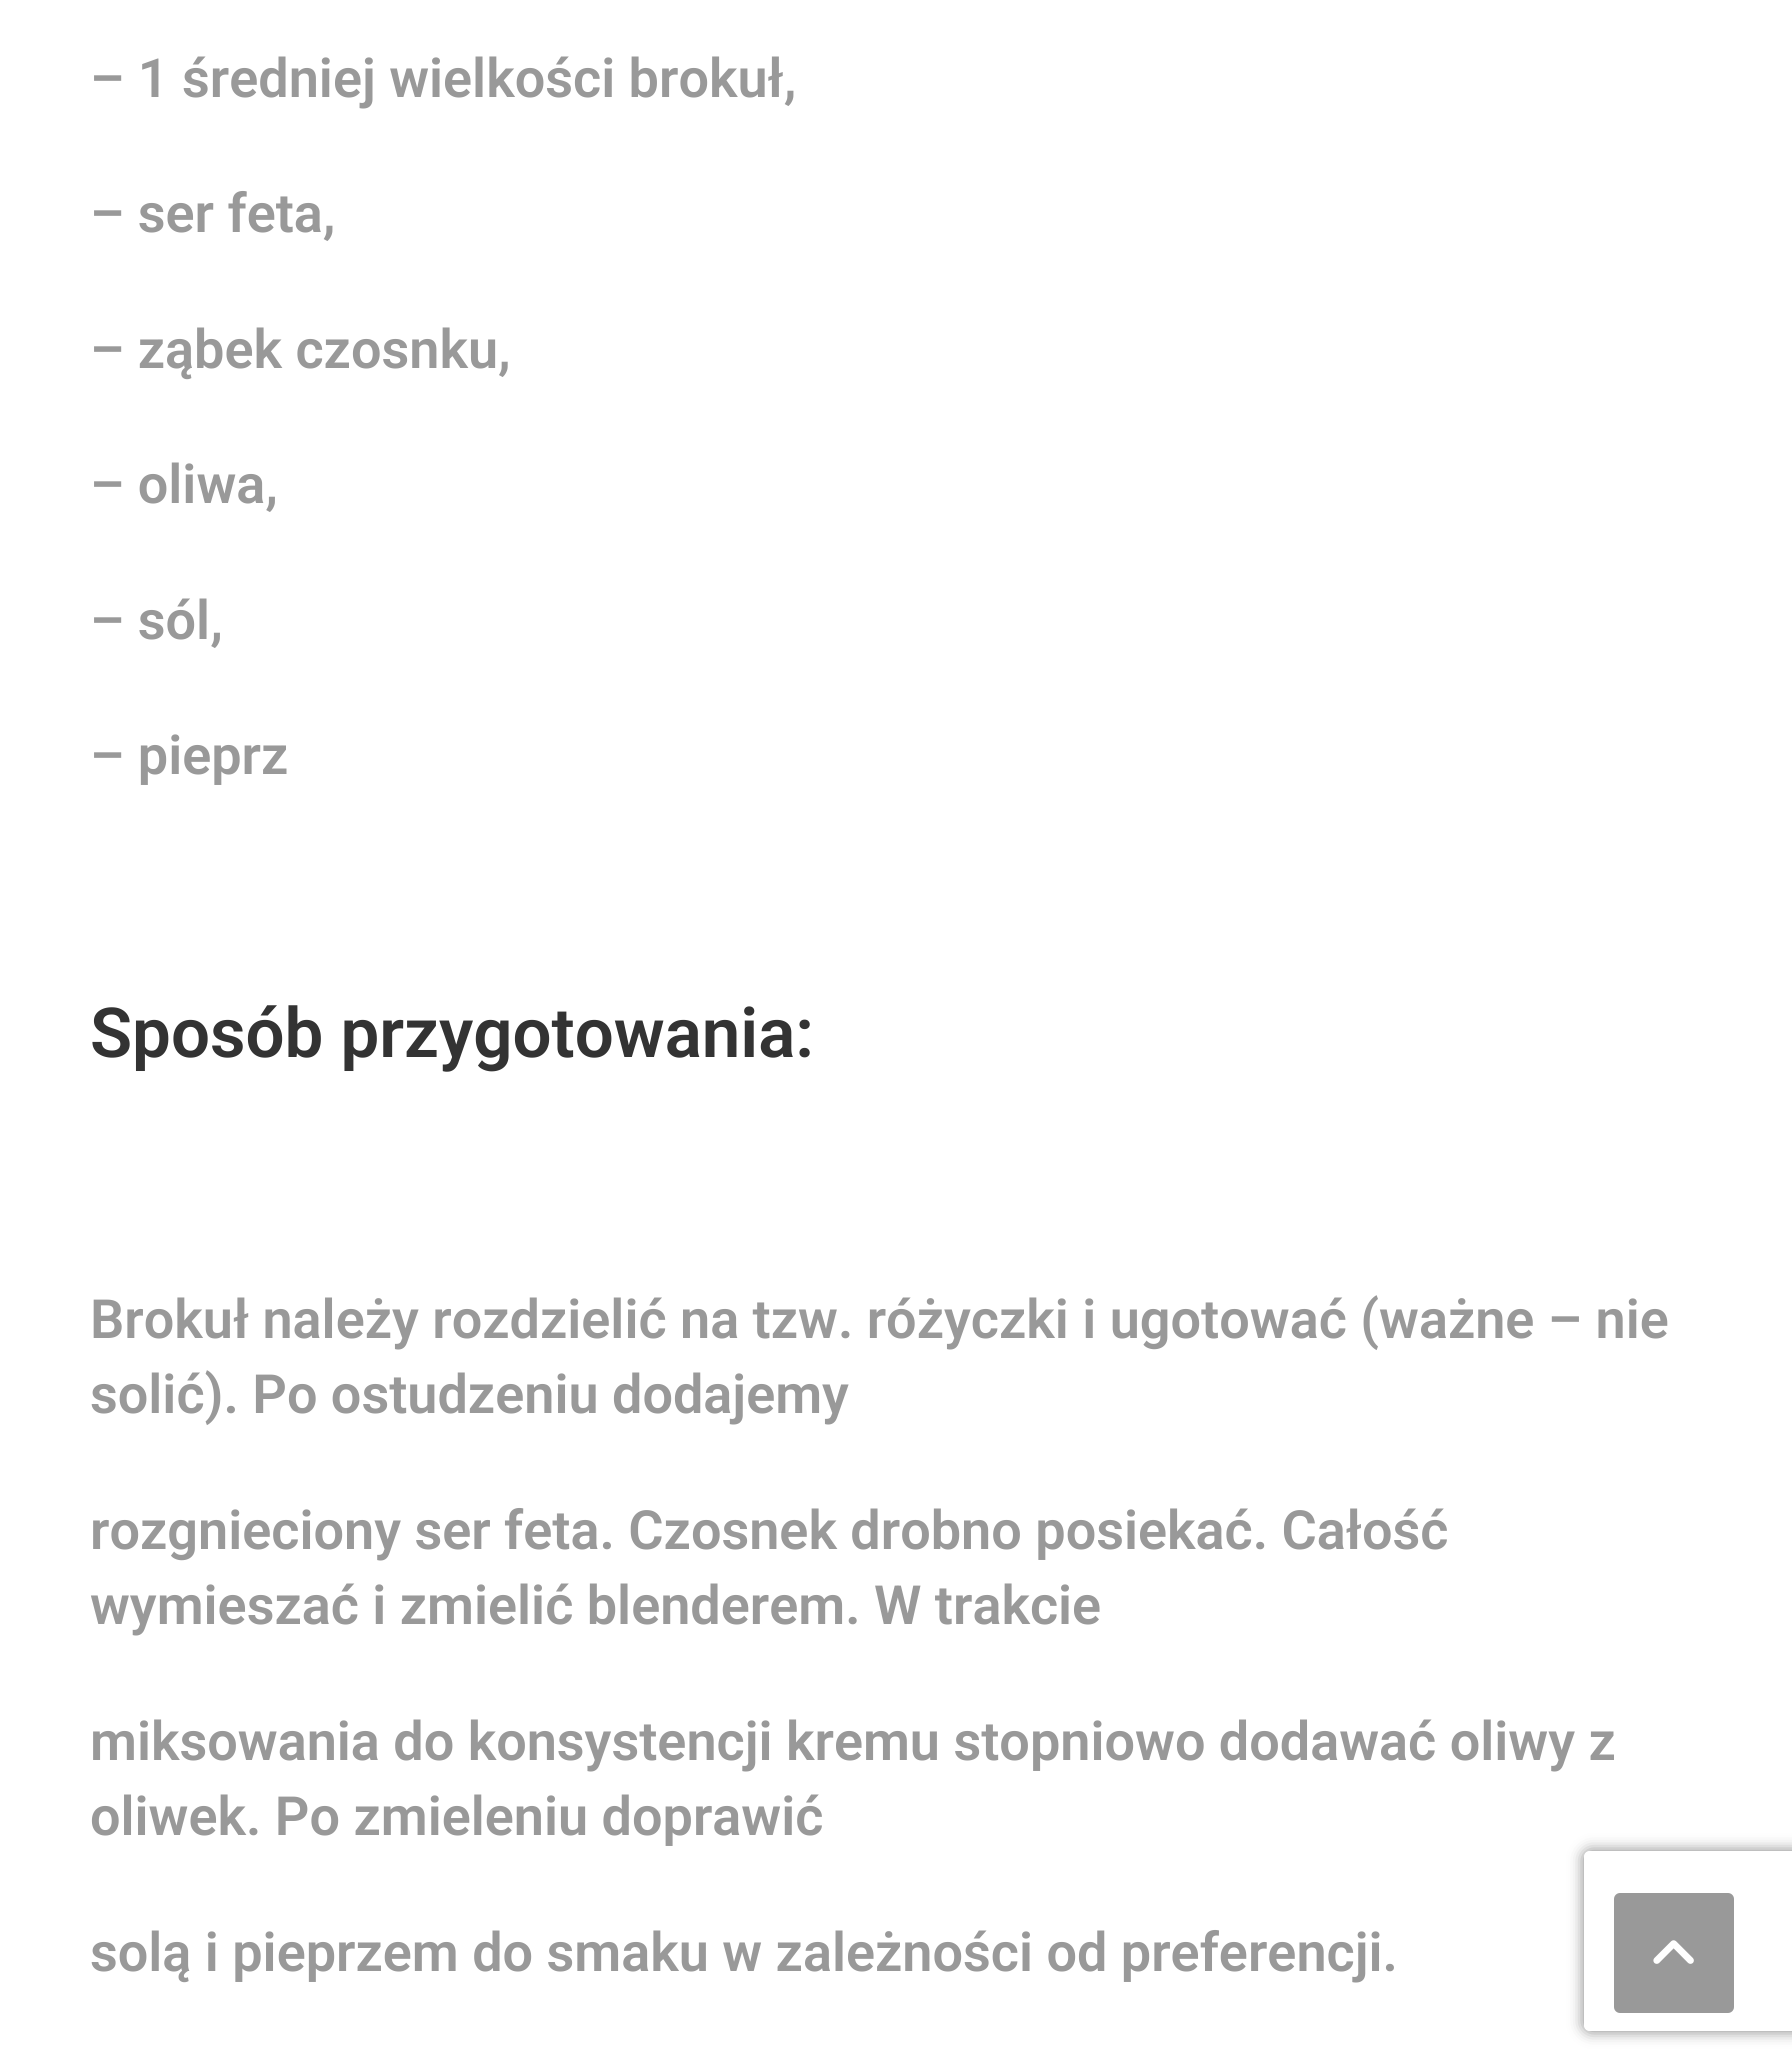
#include <cairo.h>
#include <math.h>
#include <stddef.h>


static void round_rect(cairo_t *cr, double x, double y, double w, double h, double r) {
    cairo_new_sub_path(cr);
    cairo_arc(cr, x + w - r, y + h - r, r, 0, M_PI / 2);
    cairo_arc(cr, x + r, y + h - r, r, M_PI / 2, M_PI);
    cairo_arc(cr, x + r, y + r, r, M_PI, 1.5 * M_PI);
    cairo_arc(cr, x + w - r, y + r, r, 1.5 * M_PI, 2 * M_PI);
    cairo_close_path(cr);
}

static void shadow(cairo_t *cr, double x, double y, double w, double h, double r, double blur, double alpha) {
    cairo_push_group_with_content(cr, CAIRO_CONTENT_ALPHA);
    cairo_set_operator(cr, CAIRO_OPERATOR_SOURCE);
    for (int i = 15; i >= -15 && fmin(w, h) + blur * i / 3 > 0; i -= 2) {
        double e = blur * i / 6;
        cairo_set_source_rgba(cr, 0, 0, 0, alpha * erfc((i - 1) / 8.5) / 2);
        round_rect(cr, x - e, y - e, w + 2 * e, h + 2 * e, fmax(0, fmin(r + e + blur * .6, fmin(w, h) / 2 + e)));
        cairo_fill(cr);
    }
    cairo_pattern_t *soft = cairo_pop_group(cr);
    cairo_mask(cr, soft);
    cairo_pattern_destroy(soft);
}

static void picture(cairo_t *cr, const char *path, double x, double y, double w, double h) {
    cairo_surface_t *image = cairo_image_surface_create_from_png(path);
    cairo_save(cr);
    cairo_set_source_surface(cr, image, x, y);
    cairo_rectangle(cr, x, y, w, h);
    cairo_fill(cr);
    cairo_restore(cr);
    cairo_surface_destroy(image);
}

int main(void) {
    cairo_surface_t *surface = cairo_image_surface_create(CAIRO_FORMAT_RGB24, 1792, 2071);
    cairo_t *cr = cairo_create(surface);
    cairo_font_options_t *options = cairo_font_options_create();
    cairo_font_options_set_hint_metrics(options, CAIRO_HINT_METRICS_OFF);
    cairo_font_options_set_hint_style(options, CAIRO_HINT_STYLE_NONE);
    cairo_set_font_options(cr, options);
    cairo_set_miter_limit(cr, 4);
    cairo_set_source_rgb(cr, 1, 1, 1);
    cairo_paint(cr);
    cairo_select_font_face(cr, "Roboto SemiBold", CAIRO_FONT_SLANT_NORMAL, CAIRO_FONT_WEIGHT_NORMAL);
    cairo_set_font_size(cr, 54);
    cairo_set_source_rgb(cr, 0.6, 0.6, 0.6);
    cairo_move_to(cr, 90, 97);
    cairo_show_text(cr, "– 1 średniej wielkości brokuł,");
    cairo_move_to(cr, 90, 232);
    cairo_show_text(cr, "– ser feta,");
    cairo_move_to(cr, 90, 368);
    cairo_show_text(cr, "– ząbek czosnku,");
    cairo_move_to(cr, 90, 503);
    cairo_show_text(cr, "– oliwa,");
    cairo_move_to(cr, 90, 639);
    cairo_show_text(cr, "– sól,");
    cairo_move_to(cr, 90, 774);
    cairo_show_text(cr, "– pieprz");
    cairo_set_font_size(cr, 69);
    cairo_set_source_rgb(cr, 0.2, 0.2, 0.2);
    cairo_move_to(cr, 90, 1057);
    cairo_show_text(cr, "Sposób przygotowania:");
    cairo_set_font_size(cr, 54);
    cairo_set_source_rgb(cr, 0.6, 0.6, 0.6);
    cairo_move_to(cr, 90, 1338);
    cairo_show_text(cr, "Brokuł należy rozdzielić na tzw. różyczki i ugotować (ważne – nie");
    cairo_move_to(cr, 90, 1413);
    cairo_show_text(cr, "solić). Po ostudzeniu dodajemy");
    cairo_move_to(cr, 90, 1549);
    cairo_show_text(cr, "rozgnieciony ser feta. Czosnek drobno posiekać. Całość");
    cairo_move_to(cr, 90, 1624);
    cairo_show_text(cr, "wymieszać i zmielić blenderem. W trakcie");
    cairo_move_to(cr, 90, 1760);
    cairo_show_text(cr, "miksowania do konsystencji kremu stopniowo dodawać oliwy z");
    cairo_move_to(cr, 90, 1835);
    cairo_show_text(cr, "oliwek. Po zmieleniu doprawić");
    cairo_move_to(cr, 90, 1971);
    cairo_show_text(cr, "solą i pieprzem do smaku w zależności od preferencji.");
    cairo_save(cr);
    cairo_set_fill_rule(cr, CAIRO_FILL_RULE_EVEN_ODD);
    cairo_new_path(cr);
    cairo_move_to(cr, 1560, 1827);
    cairo_line_to(cr, 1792, 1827);
    cairo_line_to(cr, 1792, 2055);
    cairo_line_to(cr, 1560, 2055);
    cairo_close_path(cr);
    cairo_move_to(cr, 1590, 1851);
    cairo_line_to(cr, 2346, 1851);
    cairo_curve_to(cr, 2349.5, 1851, 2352, 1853.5, 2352, 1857);
    cairo_line_to(cr, 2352, 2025);
    cairo_curve_to(cr, 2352, 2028.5, 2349.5, 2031, 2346, 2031);
    cairo_line_to(cr, 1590, 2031);
    cairo_curve_to(cr, 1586.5, 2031, 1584, 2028.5, 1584, 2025);
    cairo_line_to(cr, 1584, 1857);
    cairo_curve_to(cr, 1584, 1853.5, 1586.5, 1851, 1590, 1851);
    cairo_close_path(cr);
    cairo_clip(cr);
    cairo_set_source_rgb(cr, 0.502, 0.502, 0.502);
    shadow(cr, 1584, 1851, 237, 180, 6, 7.5, 1);
    cairo_restore(cr);
    round_rect(cr, 1614, 1893, 120, 120, 6);
    cairo_fill(cr);
    picture(cr, "img1.png", 1653, 1940, 41, 24);
    cairo_surface_write_to_png(surface, "page.png");
    cairo_font_options_destroy(options);
    cairo_destroy(cr);
    cairo_surface_destroy(surface);
    return 0;
}
